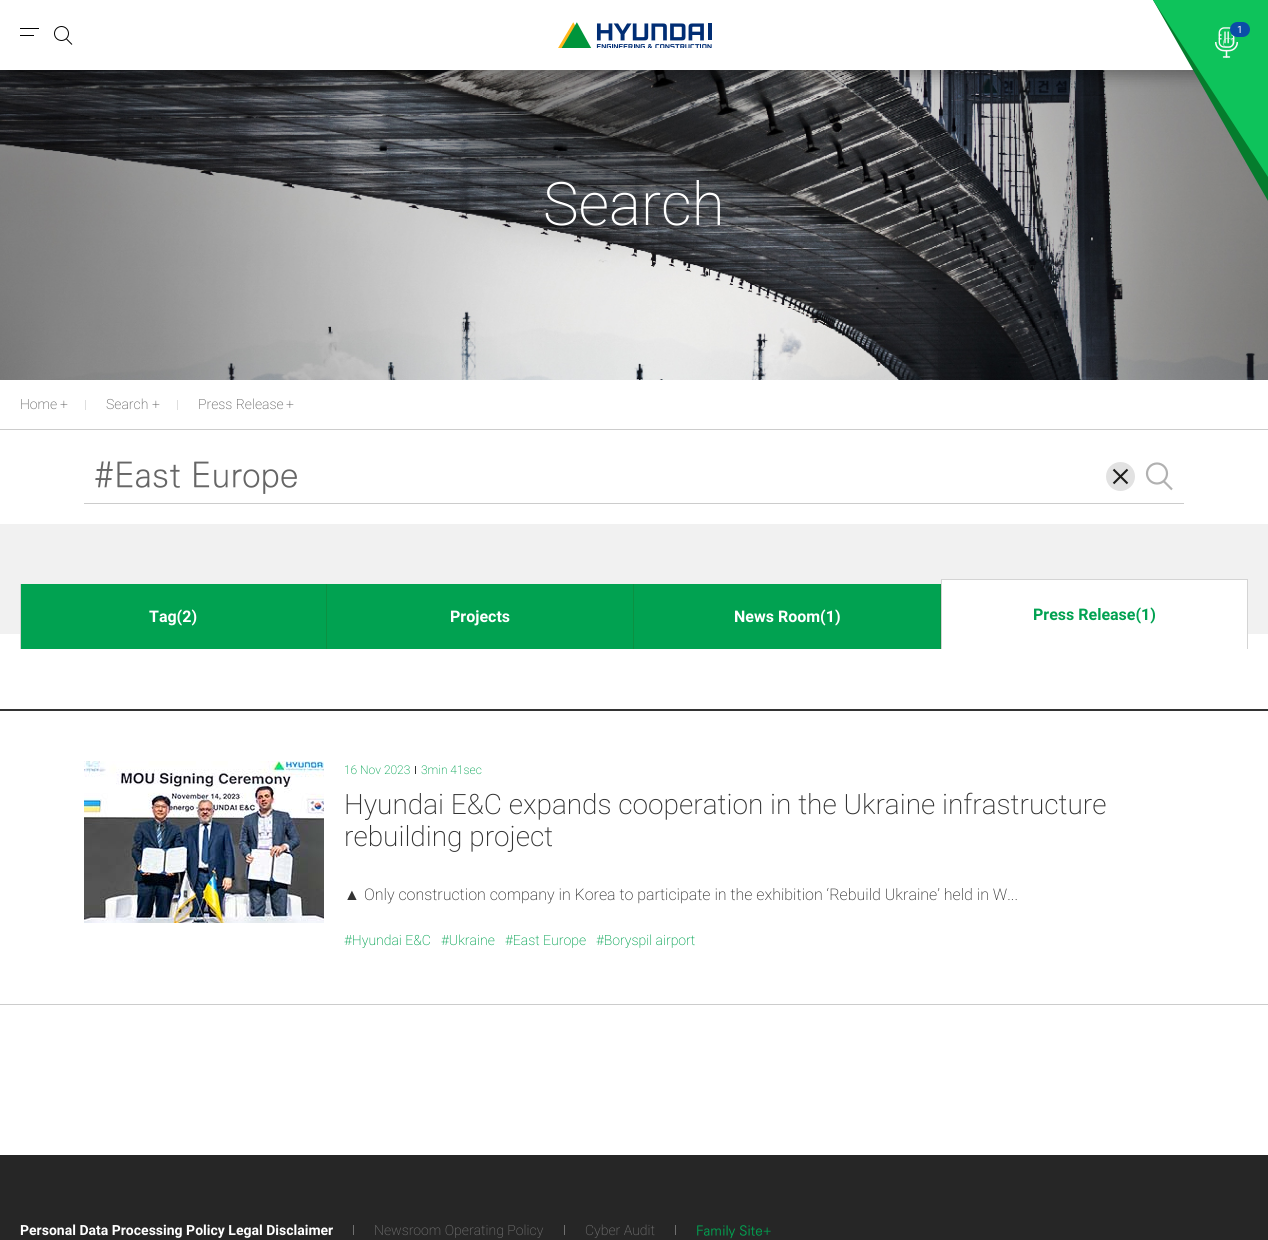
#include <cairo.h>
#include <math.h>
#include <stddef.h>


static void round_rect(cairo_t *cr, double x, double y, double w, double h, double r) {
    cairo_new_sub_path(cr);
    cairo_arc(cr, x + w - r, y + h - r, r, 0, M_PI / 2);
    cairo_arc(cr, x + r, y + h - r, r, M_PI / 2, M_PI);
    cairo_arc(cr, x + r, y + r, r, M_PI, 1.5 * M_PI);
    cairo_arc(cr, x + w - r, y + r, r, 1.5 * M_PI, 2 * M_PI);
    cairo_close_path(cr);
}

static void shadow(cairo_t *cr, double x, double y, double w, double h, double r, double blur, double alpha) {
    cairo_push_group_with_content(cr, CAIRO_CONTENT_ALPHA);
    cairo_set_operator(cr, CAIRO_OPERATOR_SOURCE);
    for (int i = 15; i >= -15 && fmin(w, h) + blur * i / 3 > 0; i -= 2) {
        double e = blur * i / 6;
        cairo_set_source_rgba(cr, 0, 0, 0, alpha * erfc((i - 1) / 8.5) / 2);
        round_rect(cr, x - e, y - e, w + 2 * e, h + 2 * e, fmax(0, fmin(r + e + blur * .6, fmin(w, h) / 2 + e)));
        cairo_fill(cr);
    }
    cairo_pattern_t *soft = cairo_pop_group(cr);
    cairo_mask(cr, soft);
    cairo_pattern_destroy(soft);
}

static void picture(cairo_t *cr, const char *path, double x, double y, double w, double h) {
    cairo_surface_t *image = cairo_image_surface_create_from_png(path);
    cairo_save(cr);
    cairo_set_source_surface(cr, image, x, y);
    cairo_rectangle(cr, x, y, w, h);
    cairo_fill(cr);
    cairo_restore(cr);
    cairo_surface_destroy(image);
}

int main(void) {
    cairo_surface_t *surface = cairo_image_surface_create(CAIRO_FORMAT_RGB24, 1268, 1240);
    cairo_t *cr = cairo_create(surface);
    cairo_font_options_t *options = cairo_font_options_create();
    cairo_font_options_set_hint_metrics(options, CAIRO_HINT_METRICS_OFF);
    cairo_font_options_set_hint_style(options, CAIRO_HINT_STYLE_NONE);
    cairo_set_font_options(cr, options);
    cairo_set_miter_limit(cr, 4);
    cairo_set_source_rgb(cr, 1, 1, 1);
    cairo_paint(cr);
    picture(cr, "img4.png", 0, 70, 1268, 310);
    cairo_set_source_rgb(cr, 0, 0, 0);
    shadow(cr, 9, 4, 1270, 72, 0, 7.5, 0.3);
    cairo_set_source_rgb(cr, 1, 1, 1);
    cairo_rectangle(cr, 0, 0, 1193, 70);
    cairo_fill(cr);
    cairo_set_source_rgb(cr, 0, 0, 0);
    cairo_rectangle(cr, 20, 28, 19, 1);
    cairo_fill(cr);
    cairo_rectangle(cr, 20, 35, 14, 1);
    cairo_fill(cr);
    cairo_arc(cr, 61.5, 33.5, 7, 0, 2 * M_PI);
    cairo_set_line_width(cr, 1);
    cairo_stroke(cr);
    cairo_new_path(cr);
    cairo_move_to(cr, 66.5, 39);
    cairo_line_to(cr, 72, 44.5);
    cairo_stroke(cr);
    picture(cr, "img1.png", 558, 22, 154, 26);
    cairo_set_source_rgb(cr, 0.02, 0.486, 0.176);
    cairo_new_path(cr);
    cairo_move_to(cr, 1153, 0);
    cairo_line_to(cr, 1268, 0);
    cairo_line_to(cr, 1268, 201);
    cairo_close_path(cr);
    cairo_fill(cr);
    cairo_set_source_rgb(cr, 0.055, 0.765, 0.357);
    cairo_new_path(cr);
    cairo_move_to(cr, 1153, 0);
    cairo_line_to(cr, 1268, 0);
    cairo_line_to(cr, 1268, 177);
    cairo_close_path(cr);
    cairo_fill(cr);
    picture(cr, "img3.png", 1223, 38, 10, 10);
    picture(cr, "img2.png", 1215, 27, 23, 31);
    cairo_set_source_rgb(cr, 0.043, 0.302, 0.655);
    round_rect(cr, 1230, 22, 20, 15, 7.5);
    cairo_fill(cr);
    cairo_select_font_face(cr, "Roboto", CAIRO_FONT_SLANT_NORMAL, CAIRO_FONT_WEIGHT_NORMAL);
    cairo_set_font_size(cr, 10);
    cairo_set_source_rgb(cr, 1, 1, 1);
    cairo_move_to(cr, 1237, 33);
    cairo_show_text(cr, "1");
    cairo_select_font_face(cr, "Roboto ExtraLight", CAIRO_FONT_SLANT_NORMAL, CAIRO_FONT_WEIGHT_NORMAL);
    cairo_set_font_size(cr, 60);
    cairo_move_to(cr, 543, 225);
    cairo_show_text(cr, "Search");
    cairo_set_source_rgb(cr, 0.8, 0.8, 0.8);
    cairo_rectangle(cr, 0, 429, 1268, 1);
    cairo_fill(cr);
    cairo_set_font_size(cr, 14);
    cairo_set_source_rgb(cr, 0.4, 0.4, 0.4);
    cairo_move_to(cr, 20, 409);
    cairo_show_text(cr, "Home");
    cairo_move_to(cr, 60, 409);
    cairo_show_text(cr, "+");
    cairo_set_source_rgb(cr, 0.871, 0.871, 0.871);
    cairo_rectangle(cr, 85, 400, 1, 10);
    cairo_fill(cr);
    cairo_set_source_rgb(cr, 0.4, 0.4, 0.4);
    cairo_move_to(cr, 106, 409);
    cairo_show_text(cr, "Search");
    cairo_move_to(cr, 152, 409);
    cairo_show_text(cr, "+");
    cairo_set_source_rgb(cr, 0.871, 0.871, 0.871);
    cairo_rectangle(cr, 177, 400, 1, 10);
    cairo_fill(cr);
    cairo_set_source_rgb(cr, 0.4, 0.4, 0.4);
    cairo_move_to(cr, 198, 409);
    cairo_show_text(cr, "Press Release");
    cairo_move_to(cr, 286, 409);
    cairo_show_text(cr, "+");
    cairo_set_source_rgb(cr, 0.8, 0.8, 0.8);
    cairo_rectangle(cr, 84, 503, 1100, 1);
    cairo_fill(cr);
    cairo_select_font_face(cr, "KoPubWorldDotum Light", CAIRO_FONT_SLANT_NORMAL, CAIRO_FONT_WEIGHT_NORMAL);
    cairo_set_font_size(cr, 34);
    cairo_set_source_rgb(cr, 0.4, 0.4, 0.4);
    cairo_move_to(cr, 94, 486);
    cairo_show_text(cr, "#East Europe");
    cairo_set_source_rgb(cr, 0.886, 0.886, 0.886);
    cairo_new_path(cr);
    cairo_arc(cr, 1120.5, 476.5, 14.5, 0, 2 * M_PI);
    cairo_fill(cr);
    cairo_new_path(cr);
    cairo_move_to(cr, 1127.5, 469.5);
    cairo_line_to(cr, 1113.5, 483.5);
    cairo_move_to(cr, 1127.5, 483.5);
    cairo_line_to(cr, 1113.5, 469.5);
    cairo_set_source_rgb(cr, 0.114, 0.114, 0.106);
    cairo_set_line_width(cr, 2.1);
    cairo_stroke(cr);
    cairo_arc(cr, 1157, 473.5, 10, 0, 2 * M_PI);
    cairo_set_source_rgb(cr, 0.694, 0.694, 0.694);
    cairo_set_line_width(cr, 2.2);
    cairo_stroke(cr);
    cairo_new_path(cr);
    cairo_move_to(cr, 1163.5, 481);
    cairo_line_to(cr, 1172, 489.5);
    cairo_stroke(cr);
    cairo_set_source_rgb(cr, 0.945, 0.945, 0.945);
    cairo_rectangle(cr, 0, 524, 1268, 110);
    cairo_fill(cr);
    cairo_set_source_rgb(cr, 0.004, 0.635, 0.318);
    cairo_rectangle(cr, 21, 584, 305, 65);
    cairo_fill(cr);
    cairo_set_source_rgb(cr, 0.043, 0.569, 0.259);
    cairo_rectangle(cr, 326, 584, 1, 65);
    cairo_fill(cr);
    cairo_set_source_rgb(cr, 0.831, 0.831, 0.831);
    cairo_rectangle(cr, 20, 584, 1, 65);
    cairo_fill(cr);
    cairo_select_font_face(cr, "Roboto", CAIRO_FONT_SLANT_NORMAL, CAIRO_FONT_WEIGHT_BOLD);
    cairo_set_font_size(cr, 16);
    cairo_set_source_rgb(cr, 1, 1, 1);
    cairo_move_to(cr, 149, 622);
    cairo_show_text(cr, "Tag(2)");
    cairo_set_source_rgb(cr, 0.004, 0.635, 0.318);
    cairo_rectangle(cr, 327, 584, 306, 65);
    cairo_fill(cr);
    cairo_set_source_rgb(cr, 0.043, 0.569, 0.259);
    cairo_rectangle(cr, 633, 584, 1, 65);
    cairo_fill(cr);
    cairo_set_source_rgb(cr, 1, 1, 1);
    cairo_move_to(cr, 450, 622);
    cairo_show_text(cr, "Projects");
    cairo_set_source_rgb(cr, 0.004, 0.635, 0.318);
    cairo_rectangle(cr, 634, 584, 306, 65);
    cairo_fill(cr);
    cairo_set_source_rgb(cr, 0.043, 0.569, 0.259);
    cairo_rectangle(cr, 940, 584, 1, 65);
    cairo_fill(cr);
    cairo_set_source_rgb(cr, 1, 1, 1);
    cairo_move_to(cr, 734, 622);
    cairo_show_text(cr, "News Room(1)");
    cairo_rectangle(cr, 942, 580, 305, 54);
    cairo_fill(cr);
    cairo_set_source_rgb(cr, 0.831, 0.831, 0.831);
    cairo_rectangle(cr, 941, 579, 307, 1);
    cairo_fill(cr);
    cairo_rectangle(cr, 1247, 579, 1, 70);
    cairo_fill(cr);
    cairo_rectangle(cr, 941, 579, 1, 70);
    cairo_fill(cr);
    cairo_set_source_rgb(cr, 0.004, 0.635, 0.318);
    cairo_move_to(cr, 1033, 620);
    cairo_show_text(cr, "Press Release(1)");
    cairo_set_source_rgb(cr, 0.2, 0.2, 0.2);
    cairo_rectangle(cr, 0, 709, 1268, 2);
    cairo_fill(cr);
    cairo_set_source_rgb(cr, 0.8, 0.8, 0.8);
    cairo_rectangle(cr, 0, 1004, 1268, 1);
    cairo_fill(cr);
    picture(cr, "img5.png", 84, 761, 240, 162);
    cairo_select_font_face(cr, "Roboto ExtraLight", CAIRO_FONT_SLANT_NORMAL, CAIRO_FONT_WEIGHT_NORMAL);
    cairo_set_font_size(cr, 12);
    cairo_set_source_rgb(cr, 0.004, 0.635, 0.318);
    cairo_move_to(cr, 344, 774);
    cairo_show_text(cr, "16 Nov 2023");
    cairo_set_source_rgb(cr, 0.2, 0.2, 0.2);
    cairo_rectangle(cr, 415, 766, 1, 8);
    cairo_fill(cr);
    cairo_set_source_rgb(cr, 0.004, 0.635, 0.318);
    cairo_move_to(cr, 421, 774);
    cairo_show_text(cr, "3min 41sec");
    cairo_set_font_size(cr, 28);
    cairo_set_source_rgb(cr, 0.2, 0.2, 0.2);
    cairo_move_to(cr, 344, 814);
    cairo_show_text(cr, "Hyundai E&C expands cooperation in the Ukraine infrastructure");
    cairo_move_to(cr, 344, 846);
    cairo_show_text(cr, "rebuilding project");
    cairo_select_font_face(cr, "Liberation Serif", CAIRO_FONT_SLANT_NORMAL, CAIRO_FONT_WEIGHT_NORMAL);
    cairo_set_font_size(cr, 16);
    cairo_move_to(cr, 344, 900);
    cairo_show_text(cr, "▲");
    cairo_select_font_face(cr, "Roboto ExtraLight", CAIRO_FONT_SLANT_NORMAL, CAIRO_FONT_WEIGHT_NORMAL);
    cairo_move_to(cr, 364, 900);
    cairo_show_text(cr, "Only construction company in Korea to participate in the exhibition ‘Rebuild Ukraine’ held in W...");
    cairo_set_font_size(cr, 14);
    cairo_set_source_rgb(cr, 0.004, 0.635, 0.318);
    cairo_move_to(cr, 344, 945);
    cairo_show_text(cr, "#Hyundai E&C");
    cairo_move_to(cr, 441, 945);
    cairo_show_text(cr, "#Ukraine");
    cairo_move_to(cr, 505, 945);
    cairo_show_text(cr, "#East Europe");
    cairo_move_to(cr, 596, 945);
    cairo_show_text(cr, "#Boryspil airport");
    cairo_set_source_rgb(cr, 0.149, 0.149, 0.149);
    cairo_rectangle(cr, 0, 1155, 1268, 85);
    cairo_fill(cr);
    cairo_select_font_face(cr, "Roboto", CAIRO_FONT_SLANT_NORMAL, CAIRO_FONT_WEIGHT_BOLD);
    cairo_set_source_rgb(cr, 1, 1, 1);
    cairo_move_to(cr, 20, 1235);
    cairo_show_text(cr, "Personal Data Processing Policy Legal Disclaimer");
    cairo_set_source_rgb(cr, 0.439, 0.439, 0.439);
    cairo_rectangle(cr, 353, 1225, 1, 10);
    cairo_fill(cr);
    cairo_select_font_face(cr, "Roboto ExtraLight", CAIRO_FONT_SLANT_NORMAL, CAIRO_FONT_WEIGHT_NORMAL);
    cairo_move_to(cr, 374, 1235);
    cairo_show_text(cr, "Newsroom Operating Policy");
    cairo_rectangle(cr, 564, 1225, 1, 10);
    cairo_fill(cr);
    cairo_move_to(cr, 585, 1235);
    cairo_show_text(cr, "Cyber Audit");
    cairo_rectangle(cr, 675, 1225, 1, 10);
    cairo_fill(cr);
    cairo_select_font_face(cr, "KoPubWorldDotum Medium", CAIRO_FONT_SLANT_NORMAL, CAIRO_FONT_WEIGHT_NORMAL);
    cairo_set_font_size(cr, 13.5);
    cairo_set_source_rgb(cr, 0.004, 0.635, 0.318);
    cairo_move_to(cr, 696, 1235);
    cairo_show_text(cr, "Family Site");
    cairo_select_font_face(cr, "KoPubWorldDotum Light", CAIRO_FONT_SLANT_NORMAL, CAIRO_FONT_WEIGHT_NORMAL);
    cairo_set_font_size(cr, 14);
    cairo_move_to(cr, 763, 1236);
    cairo_show_text(cr, "+");
    cairo_surface_write_to_png(surface, "page.png");
    cairo_font_options_destroy(options);
    cairo_destroy(cr);
    cairo_surface_destroy(surface);
    return 0;
}
